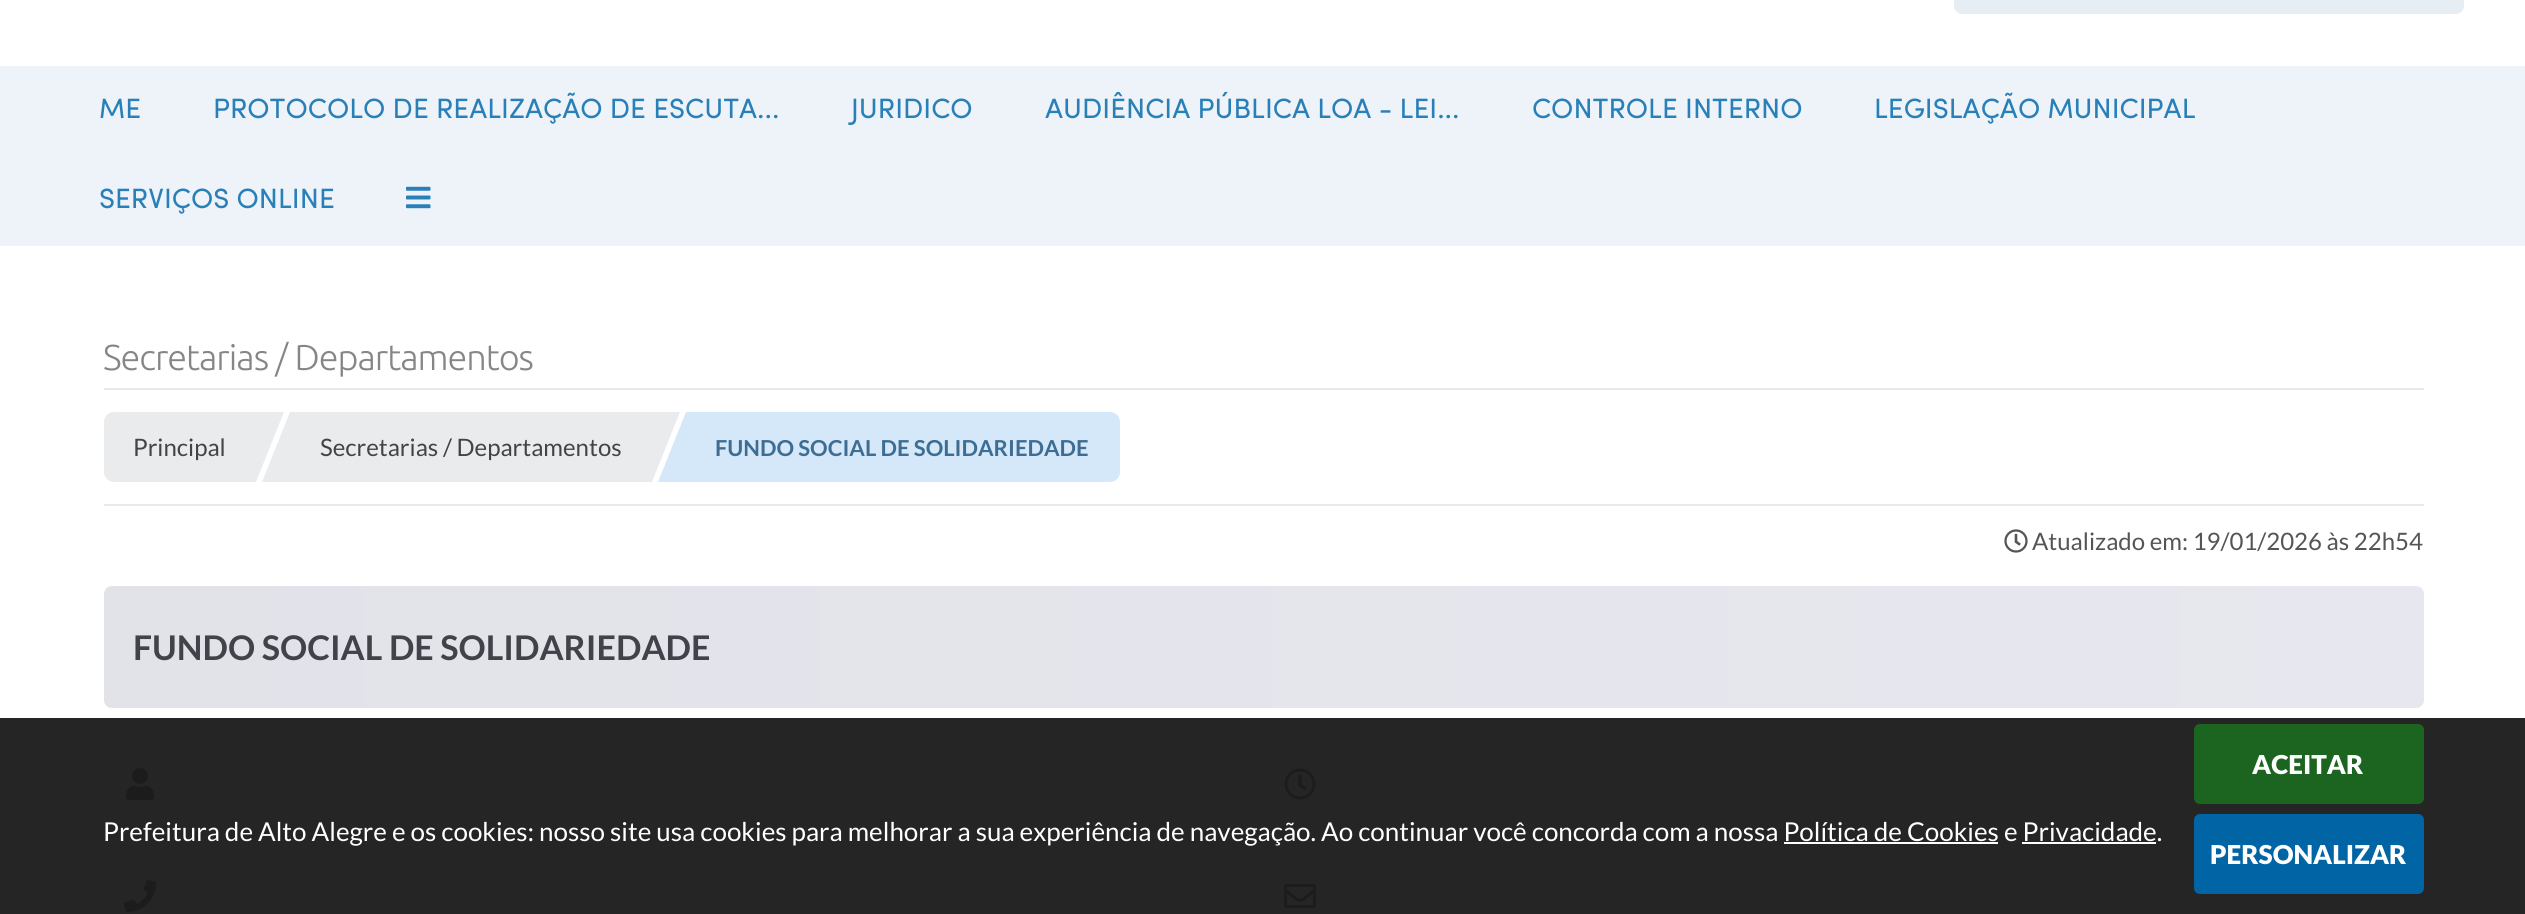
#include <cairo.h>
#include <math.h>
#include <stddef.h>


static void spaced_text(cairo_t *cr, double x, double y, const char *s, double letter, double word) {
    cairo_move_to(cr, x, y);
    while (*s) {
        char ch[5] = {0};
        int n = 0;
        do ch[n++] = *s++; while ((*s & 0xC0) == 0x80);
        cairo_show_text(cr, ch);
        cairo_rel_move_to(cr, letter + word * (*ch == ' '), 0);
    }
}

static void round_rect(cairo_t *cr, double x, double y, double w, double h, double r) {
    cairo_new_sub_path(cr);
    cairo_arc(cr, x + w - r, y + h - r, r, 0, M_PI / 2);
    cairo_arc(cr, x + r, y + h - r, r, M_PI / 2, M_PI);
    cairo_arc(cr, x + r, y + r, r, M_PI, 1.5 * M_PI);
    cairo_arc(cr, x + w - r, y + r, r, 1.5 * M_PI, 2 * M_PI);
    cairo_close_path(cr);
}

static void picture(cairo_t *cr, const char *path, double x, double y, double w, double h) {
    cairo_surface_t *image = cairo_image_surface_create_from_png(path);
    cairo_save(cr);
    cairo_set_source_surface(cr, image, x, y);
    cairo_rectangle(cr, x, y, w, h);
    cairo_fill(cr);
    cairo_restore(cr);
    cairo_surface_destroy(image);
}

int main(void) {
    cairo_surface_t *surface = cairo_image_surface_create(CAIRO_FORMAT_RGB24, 2525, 914);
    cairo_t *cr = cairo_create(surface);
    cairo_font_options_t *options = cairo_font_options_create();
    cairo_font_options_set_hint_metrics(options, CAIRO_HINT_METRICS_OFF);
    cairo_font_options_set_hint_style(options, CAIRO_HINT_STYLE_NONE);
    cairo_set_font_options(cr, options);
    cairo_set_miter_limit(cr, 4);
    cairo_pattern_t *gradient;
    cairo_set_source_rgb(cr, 1, 1, 1);
    cairo_paint(cr);
    cairo_set_source_rgb(cr, 0.145, 0.145, 0.145);
    cairo_rectangle(cr, 0, 718, 2525, 196);
    cairo_fill(cr);
    cairo_set_source_rgb(cr, 0.902, 0.929, 0.953);
    round_rect(cr, 1954, -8, 510, 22, 8);
    cairo_fill(cr);
    cairo_set_source_rgb(cr, 0.929, 0.953, 0.969);
    cairo_rectangle(cr, 0, 66, 2525, 180);
    cairo_fill(cr);
    cairo_select_font_face(cr, "Sofia", CAIRO_FONT_SLANT_NORMAL, CAIRO_FONT_WEIGHT_NORMAL);
    cairo_set_font_size(cr, 28);
    cairo_set_source_rgb(cr, 0.161, 0.502, 0.725);
    cairo_move_to(cr, 99, 118);
    cairo_show_text(cr, "ME");
    cairo_move_to(cr, 213, 118);
    cairo_show_text(cr, "PROTOCOLO DE REALIZAÇÃO DE ESCUTA...");
    cairo_move_to(cr, 851, 118);
    cairo_show_text(cr, "JURIDICO");
    cairo_move_to(cr, 1045, 118);
    cairo_show_text(cr, "AUDIÊNCIA PÚBLICA LOA - LEI...");
    cairo_move_to(cr, 1532, 118);
    cairo_show_text(cr, "CONTROLE INTERNO");
    cairo_move_to(cr, 1874, 118);
    cairo_show_text(cr, "LEGISLAÇÃO MUNICIPAL");
    cairo_move_to(cr, 99, 208);
    cairo_show_text(cr, "SERVIÇOS ONLINE");
    picture(cr, "img1.png", 406, 186, 25, 23);
    cairo_select_font_face(cr, "Lato", CAIRO_FONT_SLANT_NORMAL, CAIRO_FONT_WEIGHT_NORMAL);
    cairo_set_font_size(cr, 26);
    cairo_set_source_rgb(cr, 1, 1, 1);
    cairo_move_to(cr, 103, 841);
    cairo_show_text(cr, "Prefeitura de Alto Alegre e os cookies: nosso site usa cookies para melhorar a sua experiência de navegação. Ao continuar você concorda com a nossa Política de Cookies e Privacidade.");
    cairo_rectangle(cr, 1784, 842, 214, 2);
    cairo_fill(cr);
    cairo_rectangle(cr, 2022, 842, 134, 2);
    cairo_fill(cr);
    cairo_set_source_rgb(cr, 0.106, 0.396, 0.125);
    round_rect(cr, 2194, 724, 230, 80, 6);
    cairo_fill(cr);
    cairo_select_font_face(cr, "Lato Black", CAIRO_FONT_SLANT_NORMAL, CAIRO_FONT_WEIGHT_NORMAL);
    cairo_set_source_rgb(cr, 1, 1, 1);
    cairo_move_to(cr, 2252, 774);
    cairo_show_text(cr, "ACEITAR");
    cairo_set_source_rgb(cr, 0.004, 0.392, 0.643);
    round_rect(cr, 2194, 814, 230, 80, 6);
    cairo_fill(cr);
    cairo_set_source_rgb(cr, 1, 1, 1);
    cairo_move_to(cr, 2210, 864);
    cairo_show_text(cr, "PERSONALIZAR");
    cairo_select_font_face(cr, "Ubuntu Light", CAIRO_FONT_SLANT_NORMAL, CAIRO_FONT_WEIGHT_NORMAL);
    cairo_set_font_size(cr, 36);
    cairo_set_source_rgb(cr, 0.525, 0.525, 0.525);
    spaced_text(cr, 103, 370, "Secretarias / Departamentos", -1, 0);
    cairo_set_source_rgb(cr, 0.914, 0.914, 0.914);
    cairo_rectangle(cr, 104, 388, 2320, 2);
    cairo_fill(cr);
    cairo_rectangle(cr, 104, 504, 2320, 2);
    cairo_fill(cr);
    cairo_set_source_rgb(cr, 0.914, 0.918, 0.925);
    cairo_new_path(cr);
    cairo_move_to(cr, 114, 412);
    cairo_line_to(cr, 256, 412);
    cairo_line_to(cr, 256, 482);
    cairo_line_to(cr, 114, 482);
    cairo_curve_to(cr, 108.5, 482, 104, 477.5, 104, 472);
    cairo_line_to(cr, 104, 422);
    cairo_curve_to(cr, 104, 416.5, 108.5, 412, 114, 412);
    cairo_close_path(cr);
    cairo_fill(cr);
    cairo_select_font_face(cr, "Lato", CAIRO_FONT_SLANT_NORMAL, CAIRO_FONT_WEIGHT_NORMAL);
    cairo_set_font_size(cr, 24);
    cairo_set_source_rgb(cr, 0.267, 0.267, 0.267);
    cairo_move_to(cr, 133, 456);
    cairo_show_text(cr, "Principal");
    cairo_set_source_rgb(cr, 0.914, 0.918, 0.925);
    cairo_new_path(cr);
    cairo_move_to(cr, 256, 412);
    cairo_line_to(cr, 284, 412);
    cairo_line_to(cr, 256, 482);
    cairo_close_path(cr);
    cairo_fill(cr);
    cairo_rectangle(cr, 290, 412, 362, 70);
    cairo_fill(cr);
    cairo_new_path(cr);
    cairo_move_to(cr, 290, 482);
    cairo_line_to(cr, 262, 482);
    cairo_line_to(cr, 290, 412);
    cairo_close_path(cr);
    cairo_fill(cr);
    cairo_set_source_rgb(cr, 0.267, 0.267, 0.267);
    cairo_move_to(cr, 320, 456);
    cairo_show_text(cr, "Secretarias / Departamentos");
    cairo_set_source_rgb(cr, 0.914, 0.918, 0.925);
    cairo_new_path(cr);
    cairo_move_to(cr, 652, 412);
    cairo_line_to(cr, 680, 412);
    cairo_line_to(cr, 652, 482);
    cairo_close_path(cr);
    cairo_fill(cr);
    cairo_set_source_rgb(cr, 0.831, 0.91, 0.976);
    cairo_new_path(cr);
    cairo_move_to(cr, 686, 412);
    cairo_line_to(cr, 1110, 412);
    cairo_curve_to(cr, 1115.5, 412, 1120, 416.5, 1120, 422);
    cairo_line_to(cr, 1120, 472);
    cairo_curve_to(cr, 1120, 477.5, 1115.5, 482, 1110, 482);
    cairo_line_to(cr, 686, 482);
    cairo_close_path(cr);
    cairo_fill(cr);
    cairo_new_path(cr);
    cairo_move_to(cr, 686, 482);
    cairo_line_to(cr, 658, 482);
    cairo_line_to(cr, 686, 412);
    cairo_close_path(cr);
    cairo_fill(cr);
    cairo_select_font_face(cr, "Lato", CAIRO_FONT_SLANT_NORMAL, CAIRO_FONT_WEIGHT_BOLD);
    cairo_set_font_size(cr, 22);
    cairo_set_source_rgb(cr, 0.239, 0.427, 0.573);
    cairo_move_to(cr, 715, 456);
    cairo_show_text(cr, "FUNDO SOCIAL DE SOLIDARIEDADE");
    picture(cr, "img2.png", 2004, 529, 24, 24);
    cairo_select_font_face(cr, "Lato", CAIRO_FONT_SLANT_NORMAL, CAIRO_FONT_WEIGHT_NORMAL);
    cairo_set_font_size(cr, 24);
    cairo_set_source_rgb(cr, 0.333, 0.333, 0.333);
    cairo_move_to(cr, 2032, 550);
    cairo_show_text(cr, "Atualizado em: 19/01/2026 às 22h54");
    gradient = cairo_pattern_create_linear(104, 647, 2424, 647);
    cairo_pattern_add_color_stop_rgba(gradient, 0, 0.886, 0.89, 0.914, 1);
    cairo_pattern_add_color_stop_rgba(gradient, 1, 0.906, 0.906, 0.937, 1);
    cairo_set_source(cr, gradient);
    cairo_pattern_destroy(gradient);
    round_rect(cr, 104, 586, 2320, 122, 8);
    cairo_fill(cr);
    cairo_select_font_face(cr, "Lato", CAIRO_FONT_SLANT_NORMAL, CAIRO_FONT_WEIGHT_BOLD);
    cairo_set_font_size(cr, 34);
    cairo_set_source_rgb(cr, 0.259, 0.259, 0.294);
    cairo_move_to(cr, 133, 660);
    cairo_show_text(cr, "FUNDO SOCIAL DE SOLIDARIEDADE");
    picture(cr, "img3.png", 126, 768, 28, 32);
    picture(cr, "img4.png", 1284, 768, 32, 32);
    picture(cr, "img5.png", 124, 880, 33, 32);
    picture(cr, "img6.png", 1284, 884, 32, 24);
    cairo_surface_write_to_png(surface, "page.png");
    cairo_font_options_destroy(options);
    cairo_destroy(cr);
    cairo_surface_destroy(surface);
    return 0;
}
